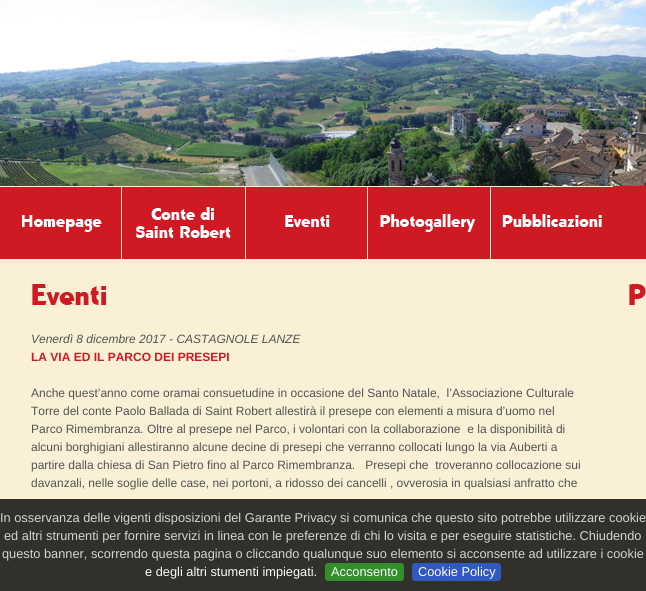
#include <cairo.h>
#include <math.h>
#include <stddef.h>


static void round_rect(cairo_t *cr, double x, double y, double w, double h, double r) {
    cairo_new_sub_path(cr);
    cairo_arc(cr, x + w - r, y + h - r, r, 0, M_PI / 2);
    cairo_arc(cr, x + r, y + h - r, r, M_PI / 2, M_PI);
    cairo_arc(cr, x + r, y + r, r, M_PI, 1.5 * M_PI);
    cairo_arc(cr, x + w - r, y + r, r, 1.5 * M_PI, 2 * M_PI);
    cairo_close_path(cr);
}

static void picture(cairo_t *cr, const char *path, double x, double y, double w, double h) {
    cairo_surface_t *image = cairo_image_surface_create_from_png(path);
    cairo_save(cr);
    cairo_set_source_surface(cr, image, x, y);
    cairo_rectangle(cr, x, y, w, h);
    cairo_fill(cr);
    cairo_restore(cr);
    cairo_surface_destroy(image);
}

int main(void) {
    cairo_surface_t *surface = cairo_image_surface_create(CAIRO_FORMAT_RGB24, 646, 591);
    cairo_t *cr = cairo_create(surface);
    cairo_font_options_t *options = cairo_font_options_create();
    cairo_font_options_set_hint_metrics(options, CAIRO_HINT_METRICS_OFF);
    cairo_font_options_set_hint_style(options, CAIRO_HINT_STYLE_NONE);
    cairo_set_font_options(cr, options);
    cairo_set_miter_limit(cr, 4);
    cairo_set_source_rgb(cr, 0.973, 0.941, 0.835);
    cairo_paint(cr);
    picture(cr, "img1.png", 0, 0, 646, 186);
    picture(cr, "img2.png", 0, 186, 122, 73);
    picture(cr, "img3.png", 122, 186, 124, 73);
    picture(cr, "img4.png", 246, 186, 122, 73);
    picture(cr, "img5.png", 368, 186, 122, 73);
    picture(cr, "img6.png", 490, 186, 123, 73);
    cairo_set_source_rgb(cr, 0.812, 0.102, 0.137);
    cairo_rectangle(cr, 613, 186, 33, 73);
    cairo_fill(cr);
    picture(cr, "img7.png", 32, 284, 74, 21);
    picture(cr, "img8.png", 629, 284, 17, 21);
    cairo_select_font_face(cr, "Liberation Sans", CAIRO_FONT_SLANT_ITALIC, CAIRO_FONT_WEIGHT_NORMAL);
    cairo_set_font_size(cr, 12);
    cairo_set_source_rgb(cr, 0.325, 0.325, 0.325);
    cairo_move_to(cr, 31, 343);
    cairo_show_text(cr, "Venerdì 8 dicembre 2017 - CASTAGNOLE LANZE");
    cairo_select_font_face(cr, "Liberation Sans", CAIRO_FONT_SLANT_NORMAL, CAIRO_FONT_WEIGHT_BOLD);
    cairo_set_source_rgb(cr, 0.812, 0.102, 0.137);
    cairo_move_to(cr, 31, 361);
    cairo_show_text(cr, "LA VIA ED IL PARCO DEI PRESEPI");
    cairo_select_font_face(cr, "Liberation Sans", CAIRO_FONT_SLANT_NORMAL, CAIRO_FONT_WEIGHT_NORMAL);
    cairo_set_source_rgb(cr, 0.325, 0.325, 0.325);
    cairo_move_to(cr, 31, 397);
    cairo_show_text(cr, "Anche quest’anno come oramai consuetudine in occasione del Santo Natale,  l’Associazione Culturale");
    cairo_move_to(cr, 31, 415);
    cairo_show_text(cr, "Torre del conte Paolo Ballada di Saint Robert allestirà il presepe con elementi a misura d’uomo nel");
    cairo_move_to(cr, 31, 433);
    cairo_show_text(cr, "Parco Rimembranza. Oltre al presepe nel Parco, i volontari con la collaborazione  e la disponibilità di");
    cairo_move_to(cr, 31, 451);
    cairo_show_text(cr, "alcuni borghigiani allestiranno alcune decine di presepi che verranno collocati lungo la via Auberti a");
    cairo_move_to(cr, 31, 469);
    cairo_show_text(cr, "partire dalla chiesa di San Pietro fino al Parco Rimembranza.   Presepi che  troveranno collocazione sui");
    cairo_move_to(cr, 31, 487);
    cairo_show_text(cr, "davanzali, nelle soglie delle case, nei portoni, a ridosso dei cancelli , ovverosia in qualsiasi anfratto che");
    cairo_set_source_rgba(cr, 0, 0, 0, 0.8);
    cairo_rectangle(cr, 0, 499, 646, 92);
    cairo_fill(cr);
    cairo_set_font_size(cr, 12.8);
    cairo_set_source_rgb(cr, 0.831, 0.831, 0.827);
    cairo_move_to(cr, 0, 522);
    cairo_show_text(cr, "In osservanza delle vigenti disposizioni del Garante Privacy si comunica che questo sito potrebbe utilizzare cookie");
    cairo_move_to(cr, 4, 540);
    cairo_show_text(cr, "ed altri strumenti per fornire servizi in linea con le preferenze di chi lo visita e per eseguire statistiche. Chiudendo");
    cairo_move_to(cr, 2, 558);
    cairo_show_text(cr, "questo banner, scorrendo questa pagina o cliccando qualunque suo elemento si acconsente ad utilizzare i cookie");
    cairo_set_source_rgb(cr, 0.996, 0.988, 0.969);
    cairo_move_to(cr, 145, 576);
    cairo_show_text(cr, "e degli altri stumenti impiegati.");
    cairo_set_source_rgb(cr, 0.196, 0.561, 0.169);
    round_rect(cr, 325, 563, 79, 18, 3);
    cairo_fill(cr);
    cairo_set_source_rgb(cr, 0.996, 0.988, 0.969);
    cairo_move_to(cr, 331, 576);
    cairo_show_text(cr, "Acconsento");
    cairo_set_source_rgb(cr, 0.196, 0.349, 0.753);
    round_rect(cr, 412, 563, 89, 18, 3);
    cairo_fill(cr);
    cairo_set_source_rgb(cr, 0.996, 0.988, 0.969);
    cairo_move_to(cr, 418, 576);
    cairo_show_text(cr, "Cookie Policy");
    cairo_surface_write_to_png(surface, "page.png");
    cairo_font_options_destroy(options);
    cairo_destroy(cr);
    cairo_surface_destroy(surface);
    return 0;
}
